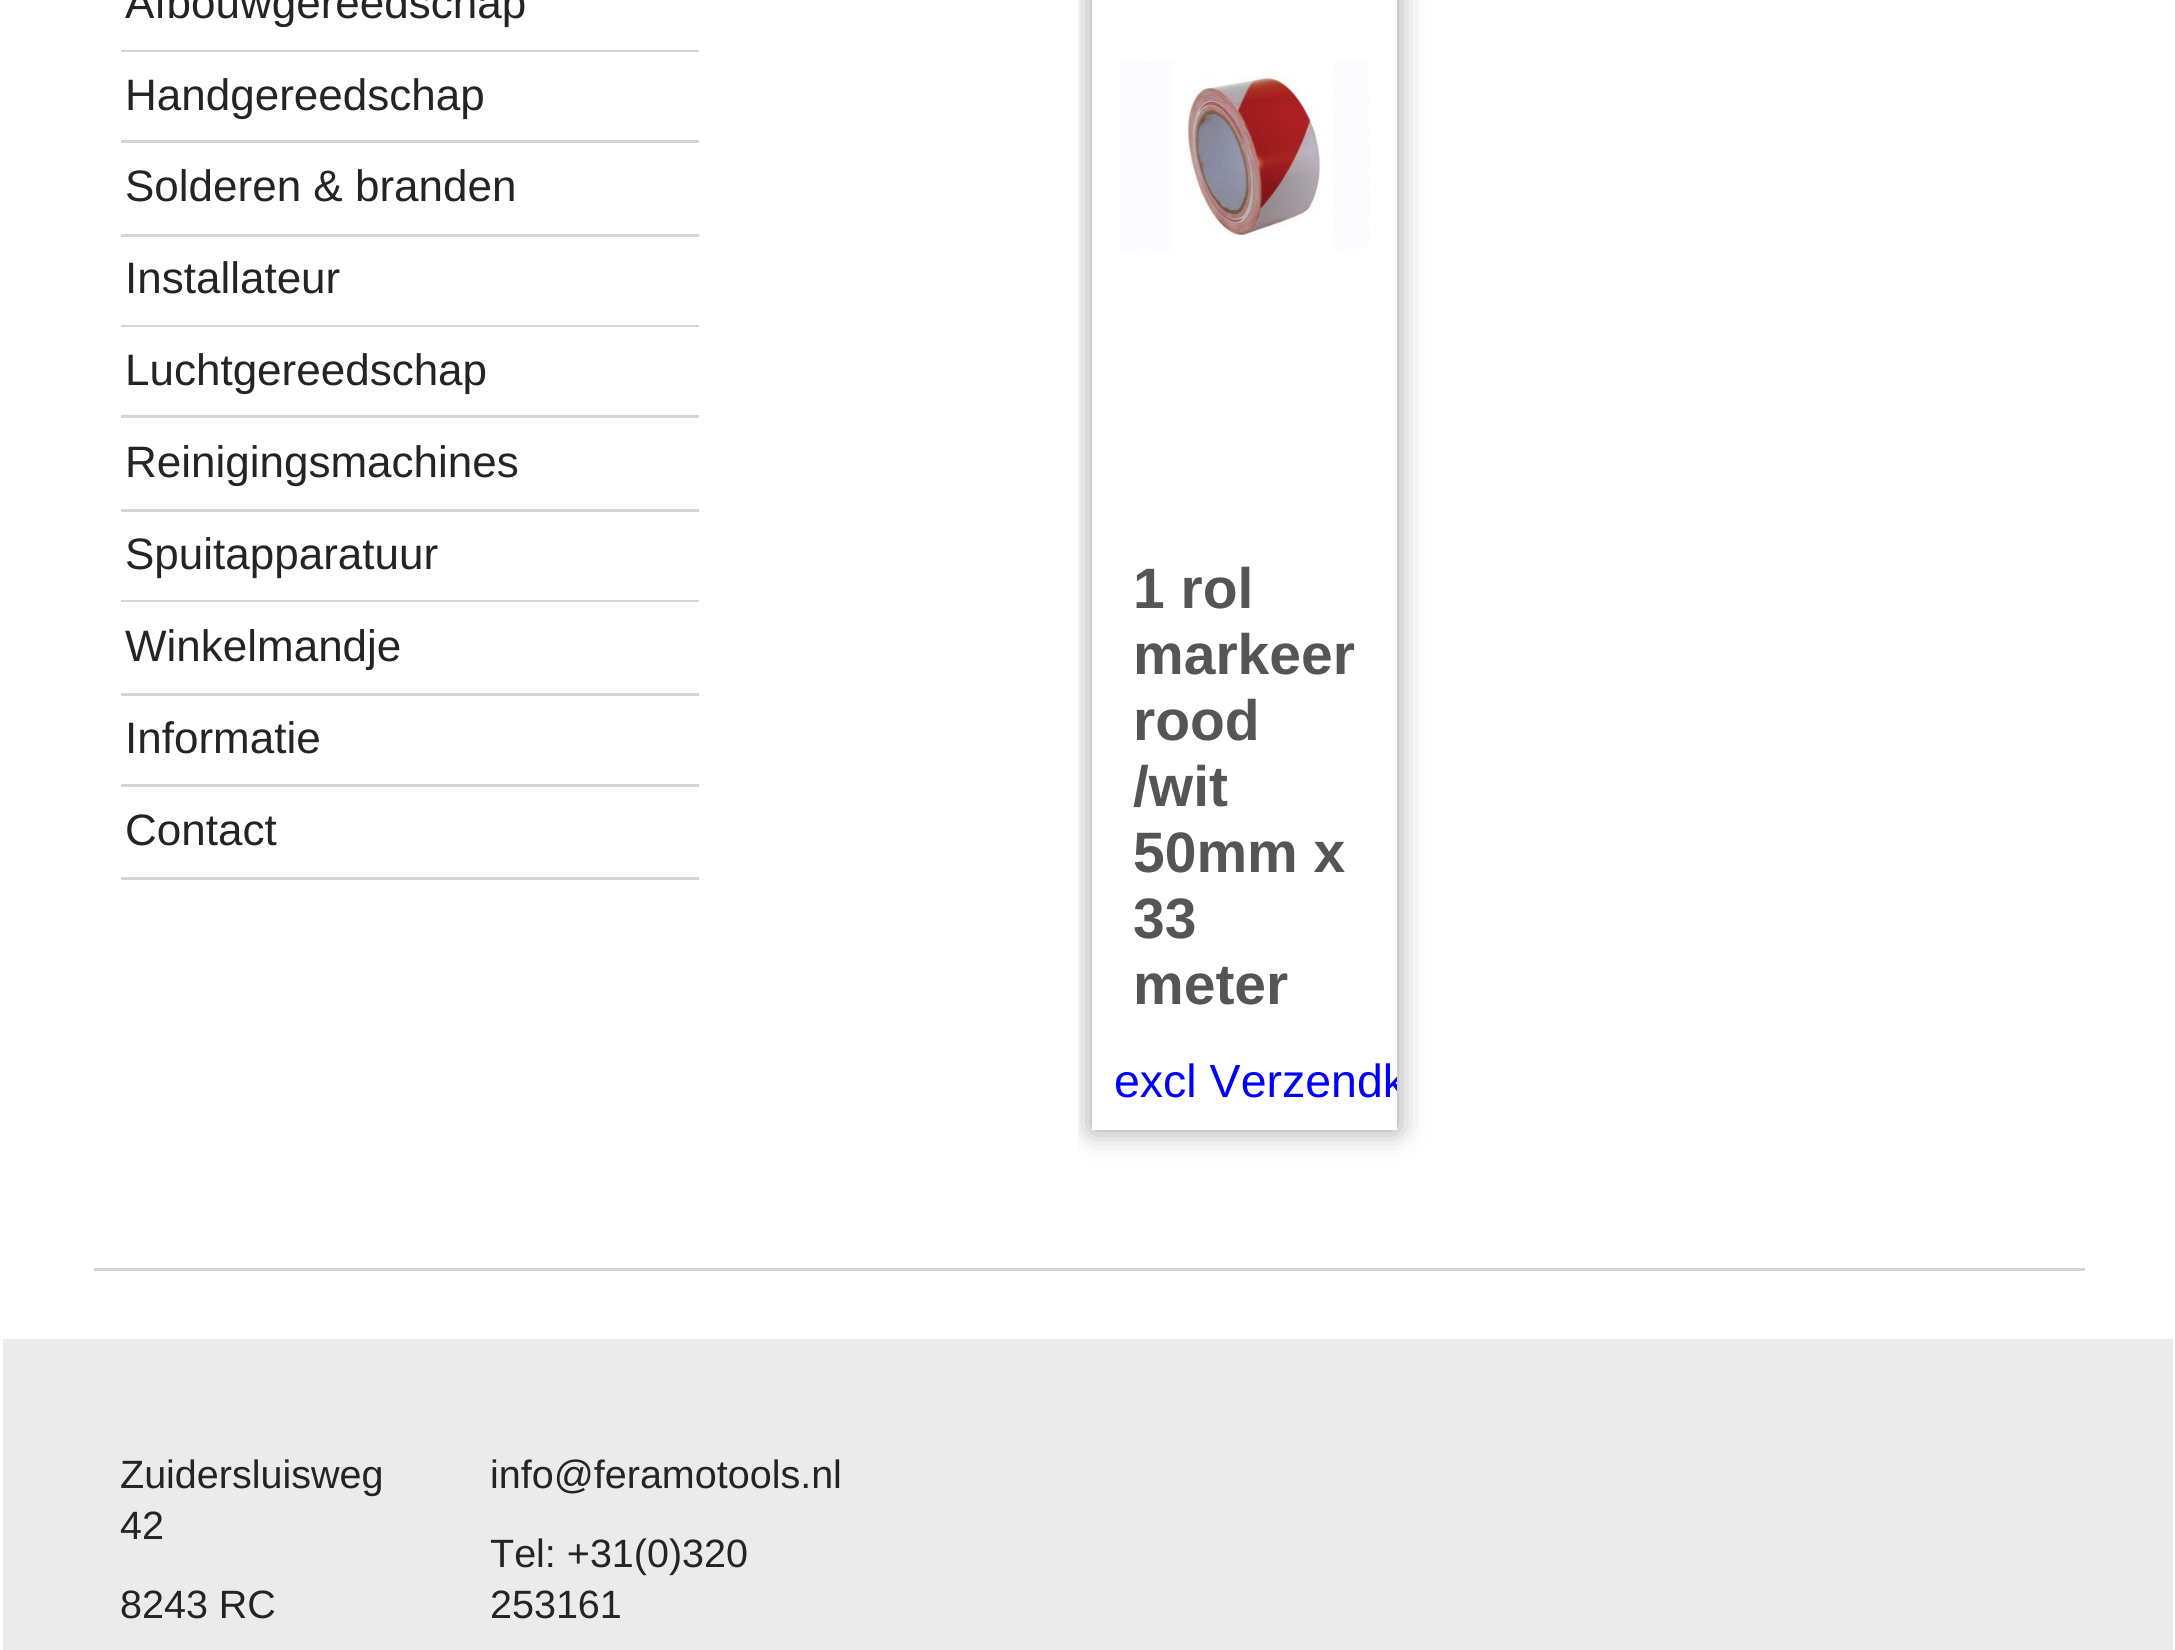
#include <cairo.h>
#include <math.h>
#include <stddef.h>


static void round_rect(cairo_t *cr, double x, double y, double w, double h, double r) {
    cairo_new_sub_path(cr);
    cairo_arc(cr, x + w - r, y + h - r, r, 0, M_PI / 2);
    cairo_arc(cr, x + r, y + h - r, r, M_PI / 2, M_PI);
    cairo_arc(cr, x + r, y + r, r, M_PI, 1.5 * M_PI);
    cairo_arc(cr, x + w - r, y + r, r, 1.5 * M_PI, 2 * M_PI);
    cairo_close_path(cr);
}

static void shadow(cairo_t *cr, double x, double y, double w, double h, double r, double blur, double alpha) {
    cairo_push_group_with_content(cr, CAIRO_CONTENT_ALPHA);
    cairo_set_operator(cr, CAIRO_OPERATOR_SOURCE);
    for (int i = 15; i >= -15 && fmin(w, h) + blur * i / 3 > 0; i -= 2) {
        double e = blur * i / 6;
        cairo_set_source_rgba(cr, 0, 0, 0, alpha * erfc((i - 1) / 8.5) / 2);
        round_rect(cr, x - e, y - e, w + 2 * e, h + 2 * e, fmax(0, fmin(r + e + blur * .6, fmin(w, h) / 2 + e)));
        cairo_fill(cr);
    }
    cairo_pattern_t *soft = cairo_pop_group(cr);
    cairo_mask(cr, soft);
    cairo_pattern_destroy(soft);
}

static void picture(cairo_t *cr, const char *path, double x, double y, double w, double h) {
    cairo_surface_t *image = cairo_image_surface_create_from_png(path);
    cairo_save(cr);
    cairo_set_source_surface(cr, image, x, y);
    cairo_rectangle(cr, x, y, w, h);
    cairo_fill(cr);
    cairo_restore(cr);
    cairo_surface_destroy(image);
}

int main(void) {
    cairo_surface_t *surface = cairo_image_surface_create(CAIRO_FORMAT_RGB24, 2175, 1650);
    cairo_t *cr = cairo_create(surface);
    cairo_font_options_t *options = cairo_font_options_create();
    cairo_font_options_set_hint_metrics(options, CAIRO_HINT_METRICS_OFF);
    cairo_font_options_set_hint_style(options, CAIRO_HINT_STYLE_NONE);
    cairo_set_font_options(cr, options);
    cairo_set_miter_limit(cr, 4);
    cairo_set_source_rgb(cr, 1, 1, 1);
    cairo_paint(cr);
    cairo_set_source_rgb(cr, 0.835, 0.835, 0.835);
    cairo_rectangle(cr, 121, 50, 578, 2);
    cairo_fill(cr);
    cairo_select_font_face(cr, "Liberation Sans", CAIRO_FONT_SLANT_NORMAL, CAIRO_FONT_WEIGHT_NORMAL);
    cairo_set_font_size(cr, 44);
    cairo_set_source_rgb(cr, 0.141, 0.141, 0.141);
    cairo_move_to(cr, 125, 18);
    cairo_show_text(cr, "Afbouwgereedschap");
    cairo_set_source_rgb(cr, 0.835, 0.835, 0.835);
    cairo_rectangle(cr, 121, 140, 578, 3);
    cairo_fill(cr);
    cairo_set_source_rgb(cr, 0.141, 0.141, 0.141);
    cairo_move_to(cr, 125, 110);
    cairo_show_text(cr, "Handgereedschap");
    cairo_set_source_rgb(cr, 0.835, 0.835, 0.835);
    cairo_rectangle(cr, 121, 234, 578, 3);
    cairo_fill(cr);
    cairo_set_source_rgb(cr, 0.141, 0.141, 0.141);
    cairo_move_to(cr, 125, 201);
    cairo_show_text(cr, "Solderen & branden");
    cairo_set_source_rgb(cr, 0.835, 0.835, 0.835);
    cairo_rectangle(cr, 121, 325, 578, 2);
    cairo_fill(cr);
    cairo_set_source_rgb(cr, 0.141, 0.141, 0.141);
    cairo_move_to(cr, 125, 293);
    cairo_show_text(cr, "Installateur");
    cairo_set_source_rgb(cr, 0.835, 0.835, 0.835);
    cairo_rectangle(cr, 121, 415, 578, 3);
    cairo_fill(cr);
    cairo_set_source_rgb(cr, 0.141, 0.141, 0.141);
    cairo_move_to(cr, 125, 385);
    cairo_show_text(cr, "Luchtgereedschap");
    cairo_set_source_rgb(cr, 0.835, 0.835, 0.835);
    cairo_rectangle(cr, 121, 509, 578, 3);
    cairo_fill(cr);
    cairo_set_source_rgb(cr, 0.141, 0.141, 0.141);
    cairo_move_to(cr, 125, 477);
    cairo_show_text(cr, "Reinigingsmachines");
    cairo_set_source_rgb(cr, 0.835, 0.835, 0.835);
    cairo_rectangle(cr, 121, 600, 578, 2);
    cairo_fill(cr);
    cairo_set_source_rgb(cr, 0.141, 0.141, 0.141);
    cairo_move_to(cr, 125, 569);
    cairo_show_text(cr, "Spuitapparatuur");
    cairo_set_source_rgb(cr, 0.835, 0.835, 0.835);
    cairo_rectangle(cr, 121, 693, 578, 3);
    cairo_fill(cr);
    cairo_set_source_rgb(cr, 0.141, 0.141, 0.141);
    cairo_move_to(cr, 125, 661);
    cairo_show_text(cr, "Winkelmandje");
    cairo_set_source_rgb(cr, 0.835, 0.835, 0.835);
    cairo_rectangle(cr, 121, 784, 578, 3);
    cairo_fill(cr);
    cairo_set_source_rgb(cr, 0.141, 0.141, 0.141);
    cairo_move_to(cr, 125, 753);
    cairo_show_text(cr, "Informatie");
    cairo_set_source_rgb(cr, 0.835, 0.835, 0.835);
    cairo_rectangle(cr, 121, 877, 578, 3);
    cairo_fill(cr);
    cairo_set_source_rgb(cr, 0.141, 0.141, 0.141);
    cairo_move_to(cr, 125, 845);
    cairo_show_text(cr, "Contact");
    cairo_save(cr);
    cairo_rectangle(cr, 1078, 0, 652, 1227);
    cairo_clip(cr);
    cairo_set_fill_rule(cr, CAIRO_FILL_RULE_EVEN_ODD);
    cairo_new_path(cr);
    cairo_move_to(cr, 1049, 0);
    cairo_line_to(cr, 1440, 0);
    cairo_line_to(cr, 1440, 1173);
    cairo_line_to(cr, 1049, 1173);
    cairo_close_path(cr);
    cairo_move_to(cr, 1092, -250);
    cairo_line_to(cr, 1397, -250);
    cairo_line_to(cr, 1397, 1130);
    cairo_line_to(cr, 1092, 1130);
    cairo_close_path(cr);
    cairo_clip(cr);
    cairo_set_source_rgb(cr, 0, 0, 0);
    shadow(cr, 1092, -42, 305, 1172, 0, 14, 0.4);
    cairo_restore(cr);
    picture(cr, "img1.png", 1119, 62, 250, 187);
    cairo_select_font_face(cr, "Liberation Sans", CAIRO_FONT_SLANT_NORMAL, CAIRO_FONT_WEIGHT_BOLD);
    cairo_set_font_size(cr, 57);
    cairo_set_source_rgb(cr, 0.333, 0.333, 0.333);
    cairo_move_to(cr, 1133, 608);
    cairo_show_text(cr, "1 rol");
    cairo_move_to(cr, 1133, 674);
    cairo_show_text(cr, "markeer");
    cairo_move_to(cr, 1133, 740);
    cairo_show_text(cr, "rood");
    cairo_move_to(cr, 1133, 806);
    cairo_show_text(cr, "/wit");
    cairo_move_to(cr, 1133, 872);
    cairo_show_text(cr, "50mm x");
    cairo_move_to(cr, 1133, 938);
    cairo_show_text(cr, "33");
    cairo_move_to(cr, 1133, 1004);
    cairo_show_text(cr, "meter");
    cairo_save(cr);
    cairo_rectangle(cr, 1092, 1059, 305, 44);
    cairo_clip(cr);
    cairo_select_font_face(cr, "Liberation Sans", CAIRO_FONT_SLANT_NORMAL, CAIRO_FONT_WEIGHT_NORMAL);
    cairo_set_font_size(cr, 46.5);
    cairo_set_source_rgb(cr, 0, 0, 1);
    cairo_move_to(cr, 1114, 1097);
    cairo_show_text(cr, "excl Verzendk");
    cairo_restore(cr);
    cairo_set_source_rgb(cr, 0.835, 0.835, 0.835);
    cairo_rectangle(cr, 94, 1268, 1991, 3);
    cairo_fill(cr);
    cairo_set_source_rgb(cr, 0.918, 0.918, 0.918);
    cairo_rectangle(cr, 3, 1339, 2170, 311);
    cairo_fill(cr);
    cairo_select_font_face(cr, "Liberation Sans", CAIRO_FONT_SLANT_NORMAL, CAIRO_FONT_WEIGHT_NORMAL);
    cairo_set_font_size(cr, 39.5);
    cairo_set_source_rgb(cr, 0.141, 0.141, 0.141);
    cairo_move_to(cr, 120, 1488);
    cairo_show_text(cr, "Zuidersluisweg");
    cairo_move_to(cr, 120, 1539);
    cairo_show_text(cr, "42");
    cairo_move_to(cr, 120, 1618);
    cairo_show_text(cr, "8243 RC");
    cairo_move_to(cr, 490, 1488);
    cairo_show_text(cr, "info@feramotools.nl");
    cairo_move_to(cr, 490, 1567);
    cairo_show_text(cr, "Tel: +31(0)320");
    cairo_move_to(cr, 490, 1618);
    cairo_show_text(cr, "253161");
    cairo_surface_write_to_png(surface, "page.png");
    cairo_font_options_destroy(options);
    cairo_destroy(cr);
    cairo_surface_destroy(surface);
    return 0;
}
